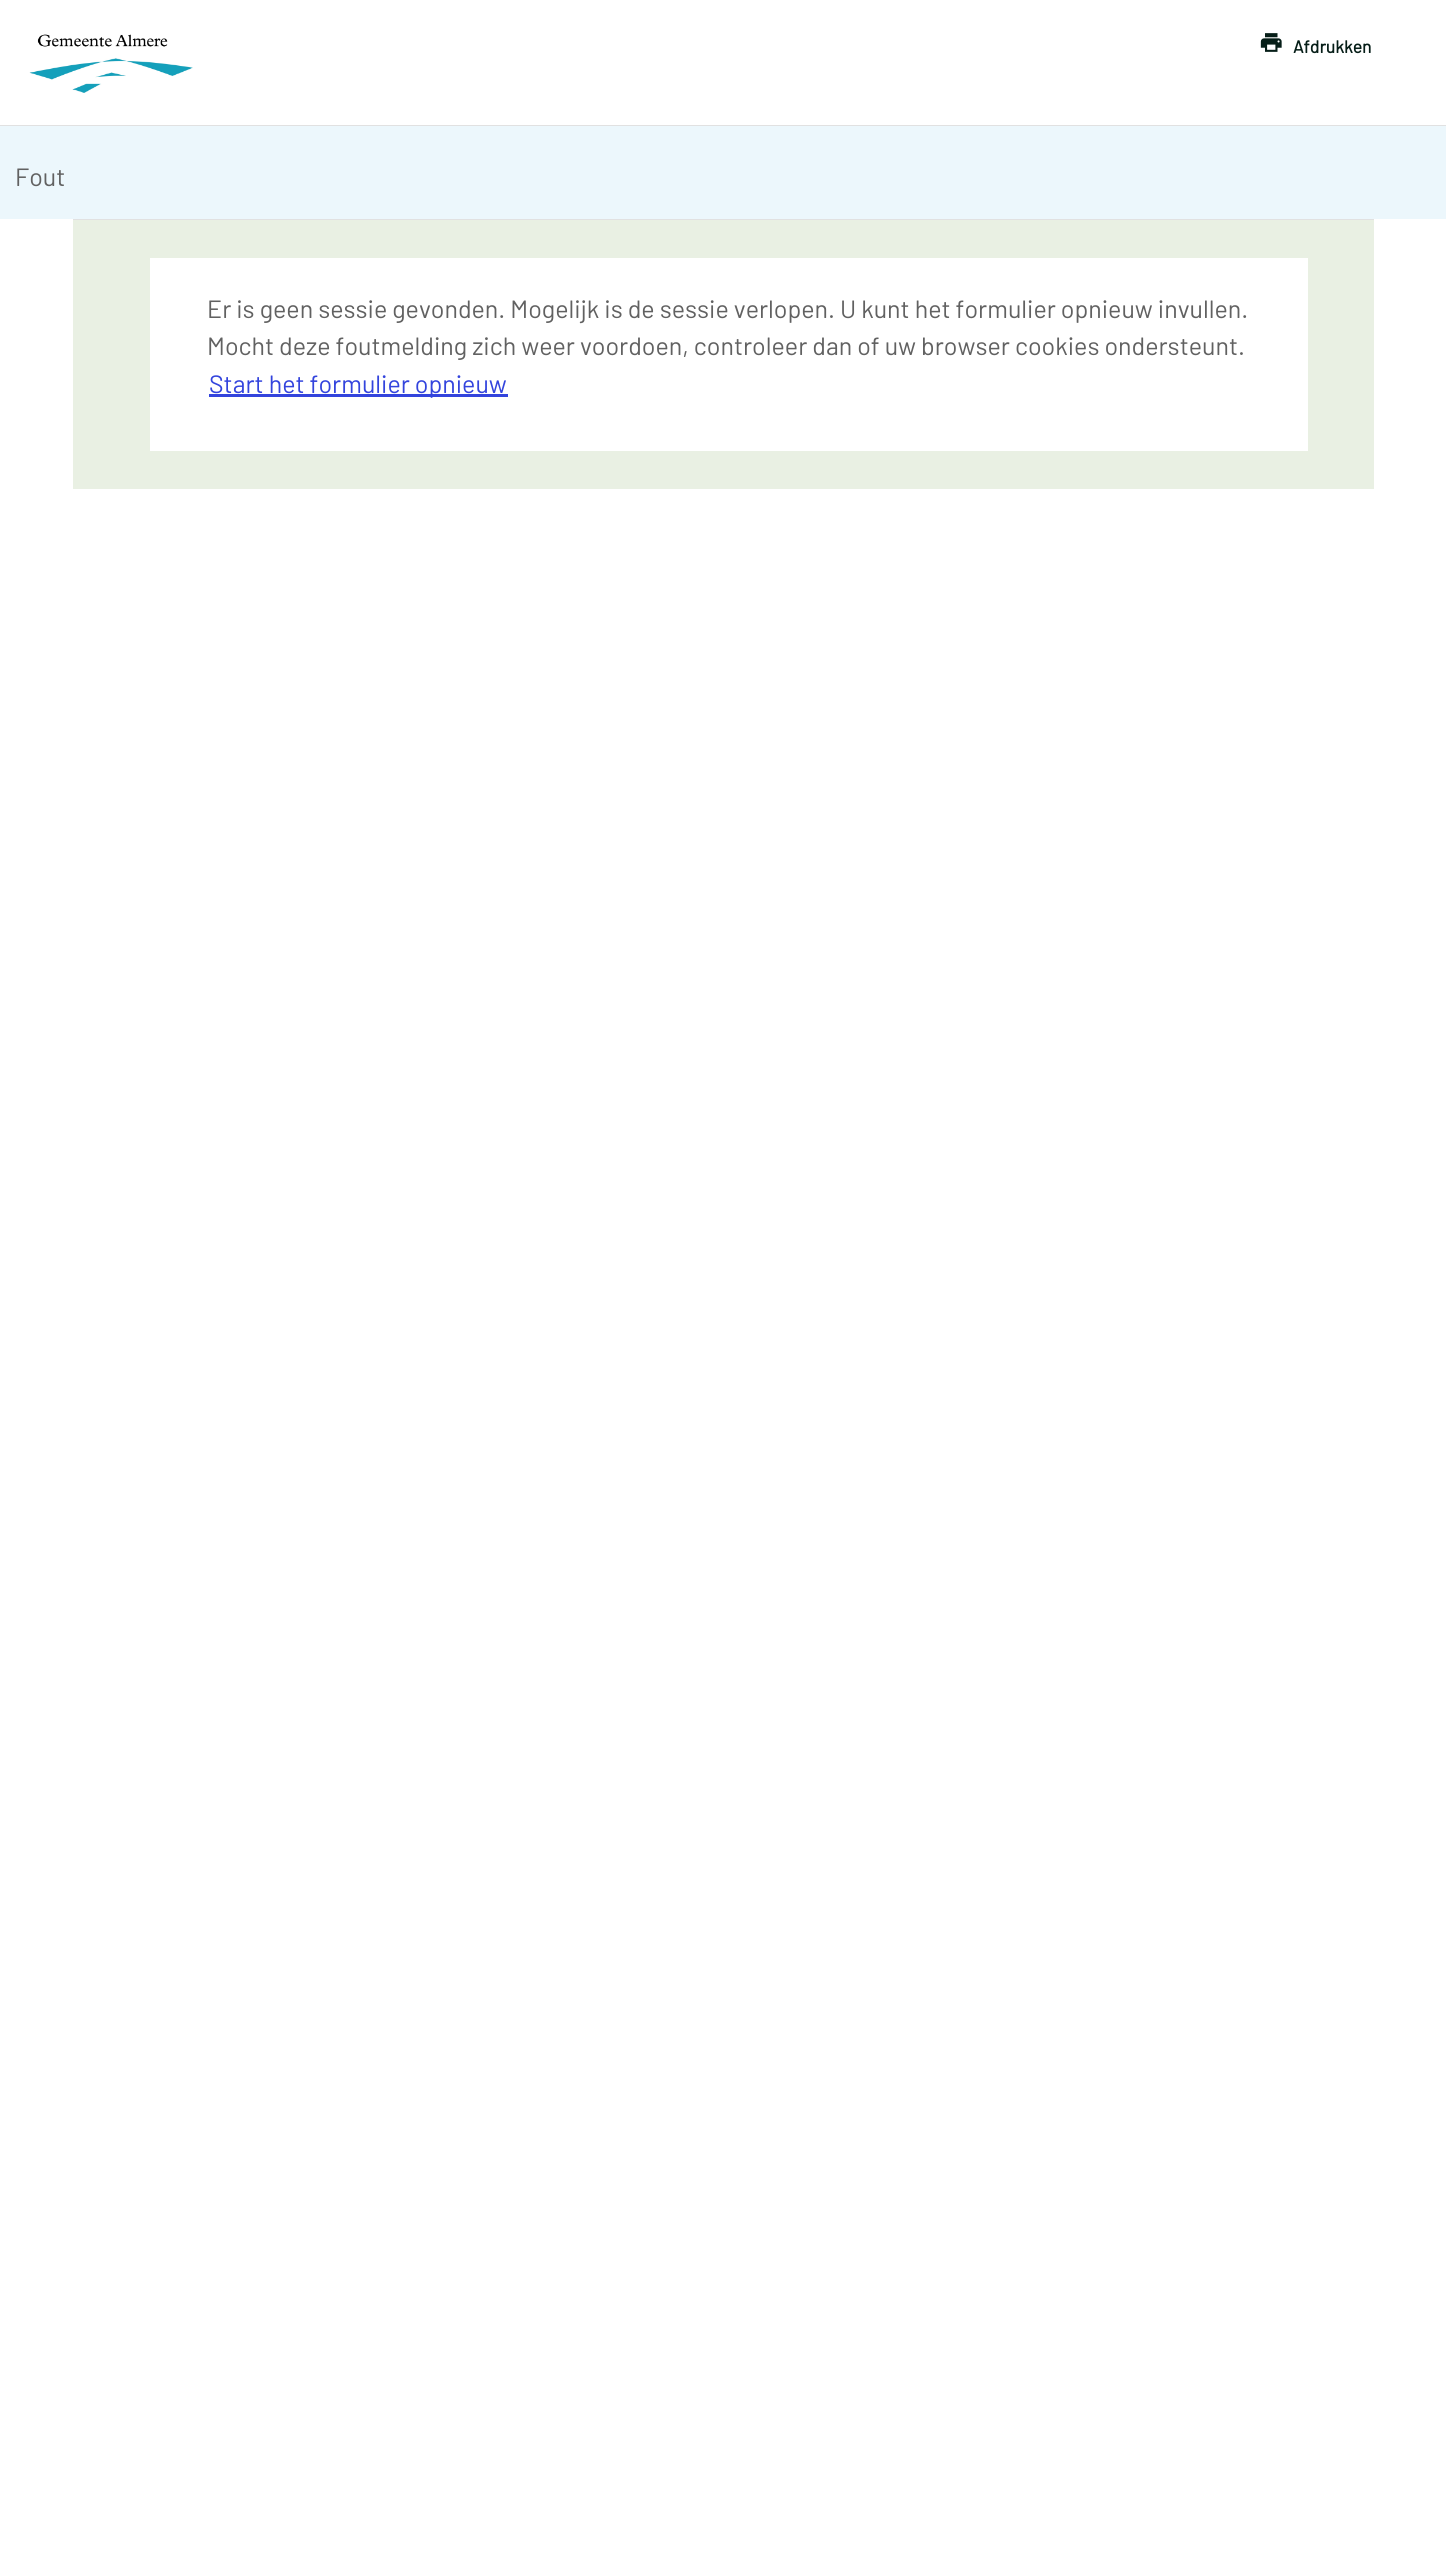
#include <cairo.h>
#include <math.h>
#include <stddef.h>


static void picture(cairo_t *cr, const char *path, double x, double y, double w, double h) {
    cairo_surface_t *image = cairo_image_surface_create_from_png(path);
    cairo_save(cr);
    cairo_set_source_surface(cr, image, x, y);
    cairo_rectangle(cr, x, y, w, h);
    cairo_fill(cr);
    cairo_restore(cr);
    cairo_surface_destroy(image);
}

int main(void) {
    cairo_surface_t *surface = cairo_image_surface_create(CAIRO_FORMAT_RGB24, 1446, 2551);
    cairo_t *cr = cairo_create(surface);
    cairo_font_options_t *options = cairo_font_options_create();
    cairo_font_options_set_hint_metrics(options, CAIRO_HINT_METRICS_OFF);
    cairo_font_options_set_hint_style(options, CAIRO_HINT_STYLE_NONE);
    cairo_set_font_options(cr, options);
    cairo_set_miter_limit(cr, 4);
    cairo_set_source_rgb(cr, 1, 1, 1);
    cairo_paint(cr);
    cairo_set_source_rgb(cr, 0.882, 0.882, 0.882);
    cairo_rectangle(cr, 0, 125, 1446, 1);
    cairo_fill(cr);
    picture(cr, "img1.png", 29, 34, 164, 59);
    picture(cr, "img2.png", 1260, 33, 22, 19);
    cairo_select_font_face(cr, "Barlow", CAIRO_FONT_SLANT_NORMAL, CAIRO_FONT_WEIGHT_BOLD);
    cairo_set_font_size(cr, 17.5);
    cairo_set_source_rgb(cr, 0.024, 0.118, 0.094);
    cairo_move_to(cr, 1293, 53);
    cairo_show_text(cr, "Afdrukken");
    cairo_set_source_rgb(cr, 0.925, 0.965, 0.988);
    cairo_rectangle(cr, 0, 126, 1446, 93);
    cairo_fill(cr);
    cairo_select_font_face(cr, "Barlow", CAIRO_FONT_SLANT_NORMAL, CAIRO_FONT_WEIGHT_NORMAL);
    cairo_set_font_size(cr, 25);
    cairo_set_source_rgb(cr, 0.38, 0.38, 0.38);
    cairo_move_to(cr, 15, 186);
    cairo_show_text(cr, "Fout");
    cairo_set_source_rgb(cr, 0.914, 0.941, 0.89);
    cairo_rectangle(cr, 73, 220, 1301, 269);
    cairo_fill(cr);
    cairo_set_source_rgb(cr, 0.882, 0.882, 0.882);
    cairo_rectangle(cr, 73, 219, 1301, 1);
    cairo_fill(cr);
    cairo_set_source_rgb(cr, 1, 1, 1);
    cairo_rectangle(cr, 150, 258, 1158, 193);
    cairo_fill(cr);
    cairo_set_source_rgb(cr, 0.38, 0.38, 0.38);
    cairo_move_to(cr, 207, 318);
    cairo_show_text(cr, "Er is geen sessie gevonden. Mogelijk is de sessie verlopen. U kunt het formulier opnieuw invullen.");
    cairo_move_to(cr, 207, 355);
    cairo_show_text(cr, "Mocht deze foutmelding zich weer voordoen, controleer dan of uw browser cookies ondersteunt.");
    cairo_set_source_rgb(cr, 0.2, 0.267, 0.867);
    cairo_rectangle(cr, 209, 394, 299, 3);
    cairo_fill(cr);
    cairo_move_to(cr, 209, 393);
    cairo_show_text(cr, "Start het formulier opnieuw");
    cairo_surface_write_to_png(surface, "page.png");
    cairo_font_options_destroy(options);
    cairo_destroy(cr);
    cairo_surface_destroy(surface);
    return 0;
}
